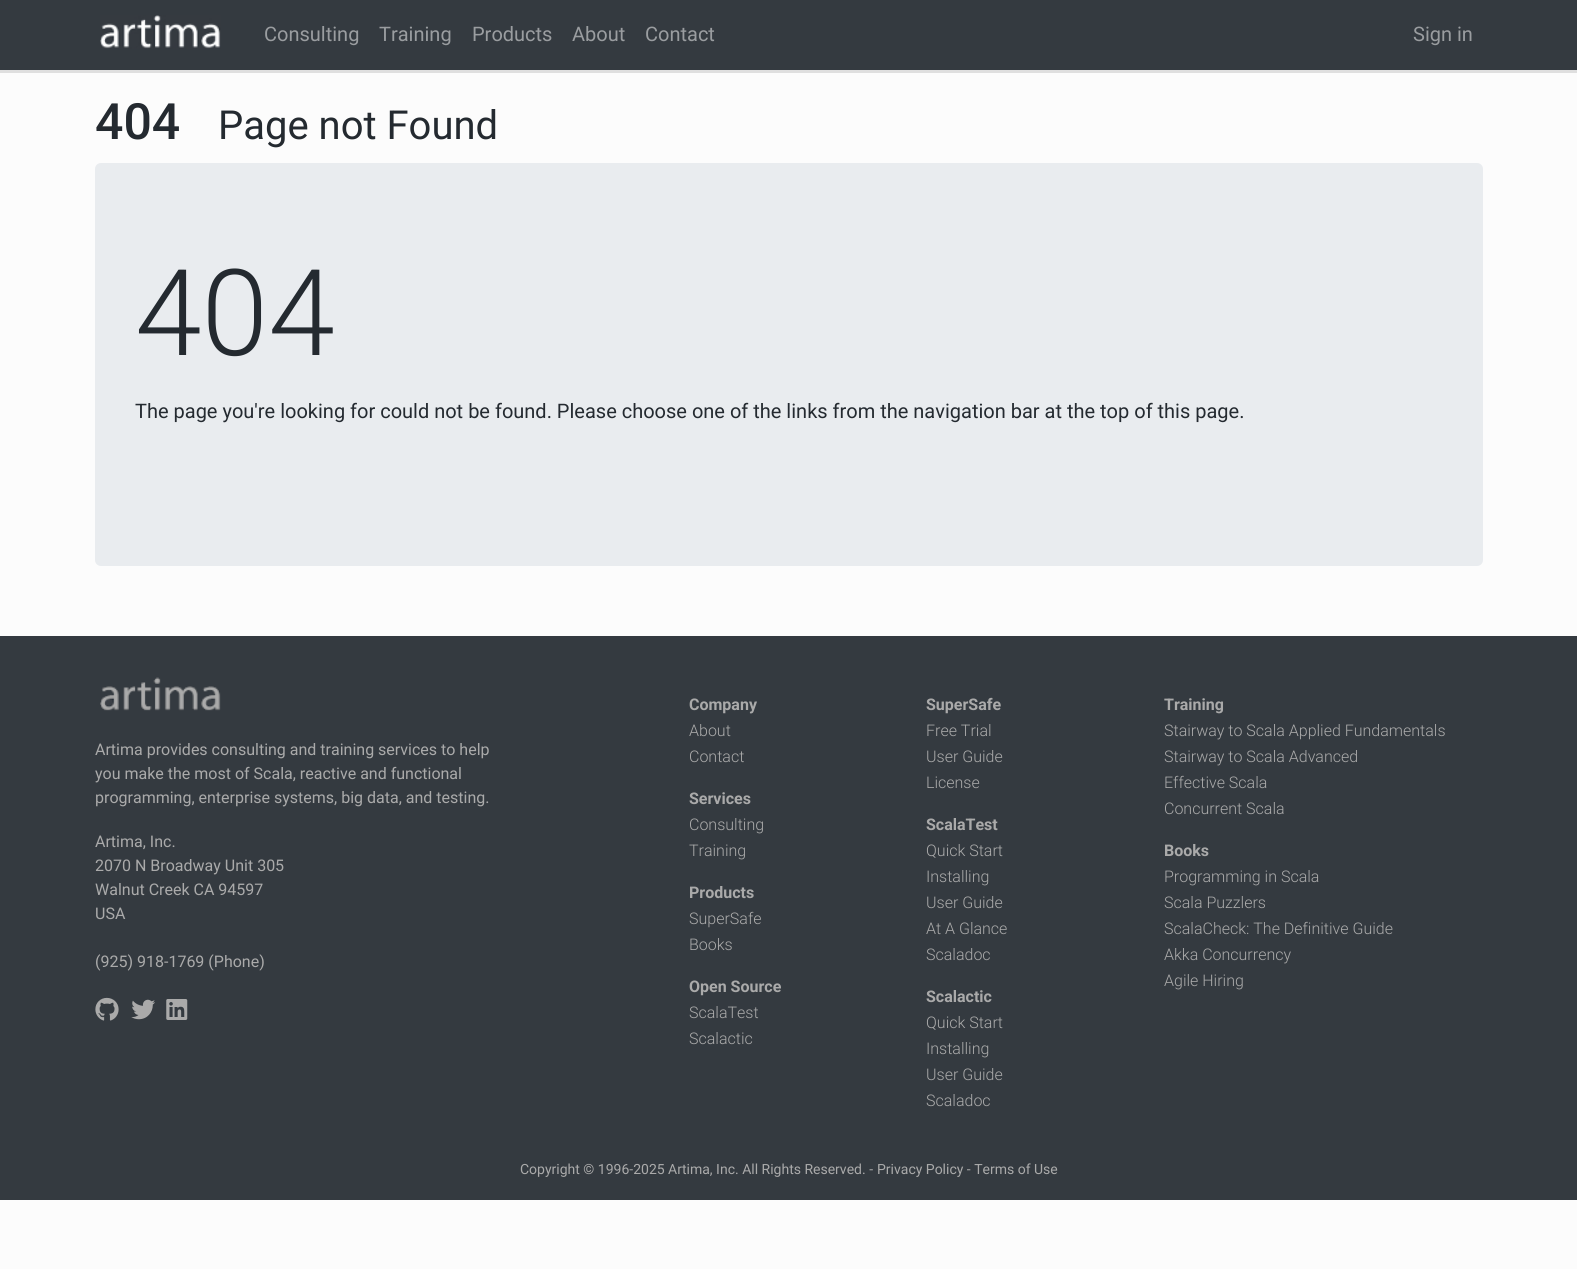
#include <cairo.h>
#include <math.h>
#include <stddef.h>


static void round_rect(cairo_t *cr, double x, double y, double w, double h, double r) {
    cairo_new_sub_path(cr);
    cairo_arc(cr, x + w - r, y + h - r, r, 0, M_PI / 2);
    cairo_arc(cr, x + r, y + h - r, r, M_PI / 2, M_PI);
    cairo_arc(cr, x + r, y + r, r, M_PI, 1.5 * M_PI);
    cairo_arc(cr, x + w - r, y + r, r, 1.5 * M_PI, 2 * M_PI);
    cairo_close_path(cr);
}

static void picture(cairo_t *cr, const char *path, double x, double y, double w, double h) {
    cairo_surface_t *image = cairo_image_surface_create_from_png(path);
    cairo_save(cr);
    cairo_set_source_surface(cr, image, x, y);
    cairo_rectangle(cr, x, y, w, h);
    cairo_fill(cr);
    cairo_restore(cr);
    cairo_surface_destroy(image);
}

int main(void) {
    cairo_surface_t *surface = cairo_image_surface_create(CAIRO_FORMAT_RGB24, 1577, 1269);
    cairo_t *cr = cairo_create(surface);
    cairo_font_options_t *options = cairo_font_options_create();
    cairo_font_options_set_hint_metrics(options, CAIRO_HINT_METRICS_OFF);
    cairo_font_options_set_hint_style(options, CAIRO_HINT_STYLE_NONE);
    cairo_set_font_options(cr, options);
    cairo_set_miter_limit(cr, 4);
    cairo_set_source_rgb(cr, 0.988, 0.988, 0.988);
    cairo_paint(cr);
    cairo_set_source_rgb(cr, 0.204, 0.227, 0.251);
    cairo_rectangle(cr, 0, 0, 1577, 70);
    cairo_fill(cr);
    picture(cr, "img1.png", 100, 15, 121, 34);
    cairo_select_font_face(cr, "Roboto", CAIRO_FONT_SLANT_NORMAL, CAIRO_FONT_WEIGHT_NORMAL);
    cairo_set_font_size(cr, 20);
    cairo_set_source_rgb(cr, 0.604, 0.616, 0.627);
    cairo_move_to(cr, 264, 41);
    cairo_show_text(cr, "Consulting");
    cairo_move_to(cr, 379, 41);
    cairo_show_text(cr, "Training");
    cairo_move_to(cr, 472, 41);
    cairo_show_text(cr, "Products");
    cairo_move_to(cr, 572, 41);
    cairo_show_text(cr, "About");
    cairo_move_to(cr, 645, 41);
    cairo_show_text(cr, "Contact");
    cairo_move_to(cr, 1413, 41);
    cairo_show_text(cr, "Sign in");
    cairo_set_source_rgb(cr, 0.204, 0.227, 0.251);
    cairo_rectangle(cr, 0, 636, 1577, 564);
    cairo_fill(cr);
    cairo_set_source_rgb(cr, 0.875, 0.875, 0.875);
    cairo_rectangle(cr, 0, 70, 1577, 3);
    cairo_fill(cr);
    cairo_select_font_face(cr, "Roboto Medium", CAIRO_FONT_SLANT_NORMAL, CAIRO_FONT_WEIGHT_NORMAL);
    cairo_set_font_size(cr, 50);
    cairo_set_source_rgb(cr, 0.141, 0.165, 0.188);
    cairo_move_to(cr, 95, 139);
    cairo_show_text(cr, "404");
    cairo_select_font_face(cr, "Roboto", CAIRO_FONT_SLANT_NORMAL, CAIRO_FONT_WEIGHT_NORMAL);
    cairo_set_font_size(cr, 40);
    cairo_move_to(cr, 218, 139);
    cairo_show_text(cr, "Page not Found");
    cairo_set_source_rgb(cr, 0.914, 0.925, 0.937);
    round_rect(cr, 95, 163, 1388, 403, 6);
    cairo_fill(cr);
    cairo_select_font_face(cr, "Roboto Light", CAIRO_FONT_SLANT_NORMAL, CAIRO_FONT_WEIGHT_NORMAL);
    cairo_set_font_size(cr, 120);
    cairo_set_source_rgb(cr, 0.141, 0.165, 0.188);
    cairo_move_to(cr, 135, 355);
    cairo_show_text(cr, "404");
    cairo_select_font_face(cr, "Roboto", CAIRO_FONT_SLANT_NORMAL, CAIRO_FONT_WEIGHT_NORMAL);
    cairo_set_font_size(cr, 20);
    cairo_move_to(cr, 135, 418);
    cairo_show_text(cr, "The page you're looking for could not be found. Please choose one of the links from the navigation bar at the top of this page.");
    picture(cr, "img2.png", 100, 677, 121, 34);
    cairo_set_font_size(cr, 16);
    cairo_set_source_rgb(cr, 0.667, 0.667, 0.667);
    cairo_move_to(cr, 95, 755);
    cairo_show_text(cr, "Artima provides consulting and training services to help");
    cairo_move_to(cr, 95, 779);
    cairo_show_text(cr, "you make the most of Scala, reactive and functional");
    cairo_move_to(cr, 95, 803);
    cairo_show_text(cr, "programming, enterprise systems, big data, and testing.");
    cairo_move_to(cr, 95, 847);
    cairo_show_text(cr, "Artima, Inc.");
    cairo_move_to(cr, 95, 871);
    cairo_show_text(cr, "2070 N Broadway Unit 305");
    cairo_move_to(cr, 95, 895);
    cairo_show_text(cr, "Walnut Creek CA 94597");
    cairo_move_to(cr, 95, 919);
    cairo_show_text(cr, "USA");
    cairo_move_to(cr, 95, 967);
    cairo_show_text(cr, "(925) 918-1769 (Phone)");
    picture(cr, "img3.png", 95, 997, 24, 24);
    picture(cr, "img4.png", 131, 999, 24, 21);
    picture(cr, "img5.png", 166, 999, 22, 21);
    cairo_select_font_face(cr, "Roboto", CAIRO_FONT_SLANT_NORMAL, CAIRO_FONT_WEIGHT_BOLD);
    cairo_move_to(cr, 689, 710);
    cairo_show_text(cr, "Company");
    cairo_select_font_face(cr, "Roboto Light", CAIRO_FONT_SLANT_NORMAL, CAIRO_FONT_WEIGHT_NORMAL);
    cairo_move_to(cr, 689, 736);
    cairo_show_text(cr, "About");
    cairo_move_to(cr, 689, 762);
    cairo_show_text(cr, "Contact");
    cairo_select_font_face(cr, "Roboto", CAIRO_FONT_SLANT_NORMAL, CAIRO_FONT_WEIGHT_BOLD);
    cairo_move_to(cr, 689, 804);
    cairo_show_text(cr, "Services");
    cairo_select_font_face(cr, "Roboto Light", CAIRO_FONT_SLANT_NORMAL, CAIRO_FONT_WEIGHT_NORMAL);
    cairo_move_to(cr, 689, 830);
    cairo_show_text(cr, "Consulting");
    cairo_move_to(cr, 689, 856);
    cairo_show_text(cr, "Training");
    cairo_select_font_face(cr, "Roboto", CAIRO_FONT_SLANT_NORMAL, CAIRO_FONT_WEIGHT_BOLD);
    cairo_move_to(cr, 689, 898);
    cairo_show_text(cr, "Products");
    cairo_select_font_face(cr, "Roboto Light", CAIRO_FONT_SLANT_NORMAL, CAIRO_FONT_WEIGHT_NORMAL);
    cairo_move_to(cr, 689, 924);
    cairo_show_text(cr, "SuperSafe");
    cairo_move_to(cr, 689, 950);
    cairo_show_text(cr, "Books");
    cairo_select_font_face(cr, "Roboto", CAIRO_FONT_SLANT_NORMAL, CAIRO_FONT_WEIGHT_BOLD);
    cairo_move_to(cr, 689, 992);
    cairo_show_text(cr, "Open Source");
    cairo_select_font_face(cr, "Roboto Light", CAIRO_FONT_SLANT_NORMAL, CAIRO_FONT_WEIGHT_NORMAL);
    cairo_move_to(cr, 689, 1018);
    cairo_show_text(cr, "ScalaTest");
    cairo_move_to(cr, 689, 1044);
    cairo_show_text(cr, "Scalactic");
    cairo_select_font_face(cr, "Roboto", CAIRO_FONT_SLANT_NORMAL, CAIRO_FONT_WEIGHT_BOLD);
    cairo_move_to(cr, 926, 710);
    cairo_show_text(cr, "SuperSafe");
    cairo_select_font_face(cr, "Roboto Light", CAIRO_FONT_SLANT_NORMAL, CAIRO_FONT_WEIGHT_NORMAL);
    cairo_move_to(cr, 926, 736);
    cairo_show_text(cr, "Free Trial");
    cairo_move_to(cr, 926, 762);
    cairo_show_text(cr, "User Guide");
    cairo_move_to(cr, 926, 788);
    cairo_show_text(cr, "License");
    cairo_select_font_face(cr, "Roboto", CAIRO_FONT_SLANT_NORMAL, CAIRO_FONT_WEIGHT_BOLD);
    cairo_move_to(cr, 926, 830);
    cairo_show_text(cr, "ScalaTest");
    cairo_select_font_face(cr, "Roboto Light", CAIRO_FONT_SLANT_NORMAL, CAIRO_FONT_WEIGHT_NORMAL);
    cairo_move_to(cr, 926, 856);
    cairo_show_text(cr, "Quick Start");
    cairo_move_to(cr, 926, 882);
    cairo_show_text(cr, "Installing");
    cairo_move_to(cr, 926, 908);
    cairo_show_text(cr, "User Guide");
    cairo_move_to(cr, 926, 934);
    cairo_show_text(cr, "At A Glance");
    cairo_move_to(cr, 926, 960);
    cairo_show_text(cr, "Scaladoc");
    cairo_select_font_face(cr, "Roboto", CAIRO_FONT_SLANT_NORMAL, CAIRO_FONT_WEIGHT_BOLD);
    cairo_move_to(cr, 926, 1002);
    cairo_show_text(cr, "Scalactic");
    cairo_select_font_face(cr, "Roboto Light", CAIRO_FONT_SLANT_NORMAL, CAIRO_FONT_WEIGHT_NORMAL);
    cairo_move_to(cr, 926, 1028);
    cairo_show_text(cr, "Quick Start");
    cairo_move_to(cr, 926, 1054);
    cairo_show_text(cr, "Installing");
    cairo_move_to(cr, 926, 1080);
    cairo_show_text(cr, "User Guide");
    cairo_move_to(cr, 926, 1106);
    cairo_show_text(cr, "Scaladoc");
    cairo_select_font_face(cr, "Roboto", CAIRO_FONT_SLANT_NORMAL, CAIRO_FONT_WEIGHT_BOLD);
    cairo_move_to(cr, 1164, 710);
    cairo_show_text(cr, "Training");
    cairo_select_font_face(cr, "Roboto Light", CAIRO_FONT_SLANT_NORMAL, CAIRO_FONT_WEIGHT_NORMAL);
    cairo_move_to(cr, 1164, 736);
    cairo_show_text(cr, "Stairway to Scala Applied Fundamentals");
    cairo_move_to(cr, 1164, 762);
    cairo_show_text(cr, "Stairway to Scala Advanced");
    cairo_move_to(cr, 1164, 788);
    cairo_show_text(cr, "Effective Scala");
    cairo_move_to(cr, 1164, 814);
    cairo_show_text(cr, "Concurrent Scala");
    cairo_select_font_face(cr, "Roboto", CAIRO_FONT_SLANT_NORMAL, CAIRO_FONT_WEIGHT_BOLD);
    cairo_move_to(cr, 1164, 856);
    cairo_show_text(cr, "Books");
    cairo_select_font_face(cr, "Roboto Light", CAIRO_FONT_SLANT_NORMAL, CAIRO_FONT_WEIGHT_NORMAL);
    cairo_move_to(cr, 1164, 882);
    cairo_show_text(cr, "Programming in Scala");
    cairo_move_to(cr, 1164, 908);
    cairo_show_text(cr, "Scala Puzzlers");
    cairo_move_to(cr, 1164, 934);
    cairo_show_text(cr, "ScalaCheck: The Definitive Guide");
    cairo_move_to(cr, 1164, 960);
    cairo_show_text(cr, "Akka Concurrency");
    cairo_move_to(cr, 1164, 986);
    cairo_show_text(cr, "Agile Hiring");
    cairo_select_font_face(cr, "Roboto", CAIRO_FONT_SLANT_NORMAL, CAIRO_FONT_WEIGHT_NORMAL);
    cairo_set_font_size(cr, 14);
    cairo_move_to(cr, 520, 1174);
    cairo_show_text(cr, "Copyright © 1996-2025 Artima, Inc. All Rights Reserved. -");
    cairo_move_to(cr, 877, 1174);
    cairo_show_text(cr, "Privacy Policy - Terms of Use");
    cairo_surface_write_to_png(surface, "page.png");
    cairo_font_options_destroy(options);
    cairo_destroy(cr);
    cairo_surface_destroy(surface);
    return 0;
}
